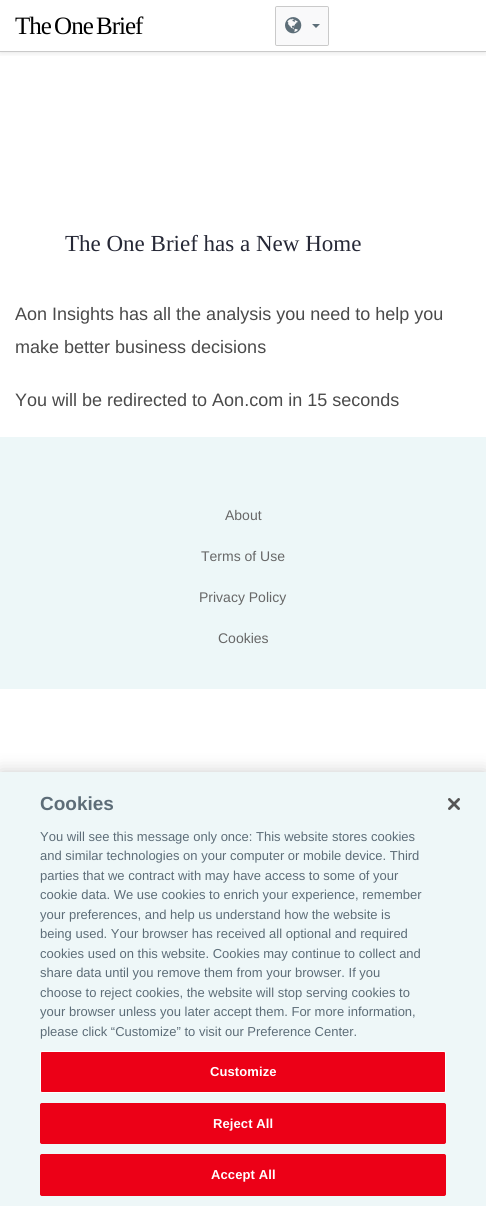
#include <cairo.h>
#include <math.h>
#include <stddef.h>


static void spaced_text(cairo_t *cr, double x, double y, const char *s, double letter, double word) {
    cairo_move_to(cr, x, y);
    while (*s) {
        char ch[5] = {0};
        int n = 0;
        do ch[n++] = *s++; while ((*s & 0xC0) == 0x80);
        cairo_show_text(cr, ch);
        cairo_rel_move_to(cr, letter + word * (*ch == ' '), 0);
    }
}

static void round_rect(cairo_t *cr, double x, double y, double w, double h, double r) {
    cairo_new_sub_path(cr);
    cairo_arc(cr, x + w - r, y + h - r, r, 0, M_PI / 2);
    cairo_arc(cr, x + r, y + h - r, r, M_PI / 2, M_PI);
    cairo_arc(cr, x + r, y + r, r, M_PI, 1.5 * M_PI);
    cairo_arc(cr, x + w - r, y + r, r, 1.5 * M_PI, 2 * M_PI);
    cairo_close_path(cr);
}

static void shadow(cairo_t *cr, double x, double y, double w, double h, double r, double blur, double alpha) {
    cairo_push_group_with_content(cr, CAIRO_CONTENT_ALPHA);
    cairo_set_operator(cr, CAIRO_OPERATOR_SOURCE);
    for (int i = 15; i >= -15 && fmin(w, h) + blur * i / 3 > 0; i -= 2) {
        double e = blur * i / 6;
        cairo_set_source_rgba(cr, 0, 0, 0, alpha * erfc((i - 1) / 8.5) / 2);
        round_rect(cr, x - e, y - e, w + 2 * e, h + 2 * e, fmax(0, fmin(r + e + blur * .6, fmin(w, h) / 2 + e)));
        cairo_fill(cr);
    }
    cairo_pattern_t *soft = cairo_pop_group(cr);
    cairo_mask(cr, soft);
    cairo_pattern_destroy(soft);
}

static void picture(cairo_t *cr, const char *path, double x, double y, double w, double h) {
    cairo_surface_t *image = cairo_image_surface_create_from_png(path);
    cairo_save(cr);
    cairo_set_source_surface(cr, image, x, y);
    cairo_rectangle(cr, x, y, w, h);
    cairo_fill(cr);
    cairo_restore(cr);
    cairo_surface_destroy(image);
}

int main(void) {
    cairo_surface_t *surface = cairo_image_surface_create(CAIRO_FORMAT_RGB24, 486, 1206);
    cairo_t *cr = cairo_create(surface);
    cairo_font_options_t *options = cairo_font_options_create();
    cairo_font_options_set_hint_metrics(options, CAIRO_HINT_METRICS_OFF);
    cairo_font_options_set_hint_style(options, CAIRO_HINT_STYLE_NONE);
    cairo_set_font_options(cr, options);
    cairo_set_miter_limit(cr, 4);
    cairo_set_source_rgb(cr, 1, 1, 1);
    cairo_paint(cr);
    cairo_save(cr);
    cairo_rectangle(cr, 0, 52, 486, 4);
    cairo_clip(cr);
    cairo_set_source_rgb(cr, 0, 0, 0);
    shadow(cr, 0, 1, 486, 52, 0, 3, 0.1);
    cairo_restore(cr);
    cairo_set_source_rgb(cr, 0.792, 0.792, 0.792);
    cairo_rectangle(cr, 0, 51, 486, 1);
    cairo_fill(cr);
    cairo_select_font_face(cr, "Liberation Serif", CAIRO_FONT_SLANT_NORMAL, CAIRO_FONT_WEIGHT_NORMAL);
    cairo_set_font_size(cr, 25);
    cairo_set_source_rgb(cr, 0, 0, 0);
    spaced_text(cr, 15, 34, "The One Brief", -1, -2);
    round_rect(cr, 275.5, 6.5, 53, 39, 1.5);
    cairo_set_source_rgb(cr, 0.792, 0.792, 0.792);
    cairo_set_line_width(cr, 1);
    cairo_stroke(cr);
    cairo_set_source_rgb(cr, 0.973, 0.976, 0.98);
    round_rect(cr, 276, 7, 52, 38, 2.5);
    cairo_fill(cr);
    picture(cr, "img1.png", 285, 17, 17, 17);
    cairo_set_source_rgb(cr, 0.365, 0.431, 0.471);
    cairo_new_path(cr);
    cairo_move_to(cr, 312, 24);
    cairo_line_to(cr, 320, 24);
    cairo_line_to(cr, 316, 28);
    cairo_close_path(cr);
    cairo_fill(cr);
    cairo_set_font_size(cr, 23);
    cairo_set_source_rgb(cr, 0.149, 0.157, 0.212);
    cairo_move_to(cr, 65, 251);
    cairo_show_text(cr, "The One Brief has a New Home");
    cairo_select_font_face(cr, "Liberation Sans", CAIRO_FONT_SLANT_NORMAL, CAIRO_FONT_WEIGHT_NORMAL);
    cairo_set_font_size(cr, 18);
    cairo_set_source_rgb(cr, 0.29, 0.29, 0.29);
    cairo_move_to(cr, 15, 320);
    cairo_show_text(cr, "Aon Insights has all the analysis you need to help you");
    cairo_move_to(cr, 15, 353);
    cairo_show_text(cr, "make better business decisions");
    cairo_move_to(cr, 15, 406);
    cairo_show_text(cr, "You will be redirected to Aon.com in 15 seconds");
    cairo_set_source_rgb(cr, 0.929, 0.965, 0.969);
    cairo_rectangle(cr, 0, 437, 486, 252);
    cairo_fill(cr);
    cairo_set_font_size(cr, 14);
    cairo_set_source_rgb(cr, 0.404, 0.404, 0.404);
    cairo_move_to(cr, 225, 520);
    cairo_show_text(cr, "About");
    cairo_move_to(cr, 201, 561);
    cairo_show_text(cr, "Terms of Use");
    cairo_move_to(cr, 199, 602);
    cairo_show_text(cr, "Privacy Policy");
    cairo_move_to(cr, 218, 643);
    cairo_show_text(cr, "Cookies");
    cairo_set_source_rgb(cr, 0, 0, 0);
    shadow(cr, 0, 772, 486, 434, 0, 9, 0.2);
    cairo_set_source_rgb(cr, 0.933, 0.965, 0.969);
    cairo_rectangle(cr, 0, 772, 486, 434);
    cairo_fill(cr);
    cairo_select_font_face(cr, "Liberation Sans", CAIRO_FONT_SLANT_NORMAL, CAIRO_FONT_WEIGHT_BOLD);
    cairo_set_font_size(cr, 19);
    cairo_set_source_rgb(cr, 0.365, 0.427, 0.471);
    cairo_move_to(cr, 40, 810);
    cairo_show_text(cr, "Cookies");
    cairo_select_font_face(cr, "Liberation Sans", CAIRO_FONT_SLANT_NORMAL, CAIRO_FONT_WEIGHT_NORMAL);
    cairo_set_font_size(cr, 13);
    cairo_move_to(cr, 40, 841);
    cairo_show_text(cr, "You will see this message only once: This website stores cookies");
    cairo_move_to(cr, 40, 860);
    cairo_show_text(cr, "and similar technologies on your computer or mobile device. Third");
    cairo_move_to(cr, 40, 880);
    cairo_show_text(cr, "parties that we contract with may have access to some of your");
    cairo_move_to(cr, 40, 899);
    cairo_show_text(cr, "cookie data. We use cookies to enrich your experience, remember");
    cairo_move_to(cr, 40, 919);
    cairo_show_text(cr, "your preferences, and help us understand how the website is");
    cairo_move_to(cr, 40, 938);
    cairo_show_text(cr, "being used. Your browser has received all optional and required");
    cairo_move_to(cr, 40, 958);
    cairo_show_text(cr, "cookies used on this website. Cookies may continue to collect and");
    cairo_move_to(cr, 40, 977);
    cairo_show_text(cr, "share data until you remove them from your browser. If you");
    cairo_move_to(cr, 40, 997);
    cairo_show_text(cr, "choose to reject cookies, the website will stop serving cookies to");
    cairo_move_to(cr, 40, 1016);
    cairo_show_text(cr, "your browser unless you later accept them. For more information,");
    cairo_move_to(cr, 40, 1036);
    cairo_show_text(cr, "please click “Customize” to visit our Preference Center.");
    cairo_set_source_rgb(cr, 0.922, 0, 0.09);
    round_rect(cr, 40.5, 1051.5, 405, 41, 1.5);
    cairo_fill_preserve(cr);
    cairo_set_source_rgb(cr, 1, 1, 1);
    cairo_stroke(cr);
    cairo_select_font_face(cr, "Liberation Sans", CAIRO_FONT_SLANT_NORMAL, CAIRO_FONT_WEIGHT_BOLD);
    spaced_text(cr, 210, 1076, "Customize", 0.1, 0);
    cairo_set_source_rgb(cr, 0.922, 0, 0.09);
    round_rect(cr, 40.5, 1103.5, 405, 40, 1.5);
    cairo_fill_preserve(cr);
    cairo_stroke(cr);
    cairo_set_source_rgb(cr, 1, 1, 1);
    spaced_text(cr, 213, 1128, "Reject All", 0.1, 0);
    cairo_set_source_rgb(cr, 0.922, 0, 0.09);
    round_rect(cr, 40.5, 1154.5, 405, 41, 1.5);
    cairo_fill_preserve(cr);
    cairo_stroke(cr);
    cairo_set_source_rgb(cr, 1, 1, 1);
    spaced_text(cr, 211, 1179, "Accept All", 0.1, 0);
    picture(cr, "img2.png", 448, 798, 12, 12);
    cairo_surface_write_to_png(surface, "page.png");
    cairo_font_options_destroy(options);
    cairo_destroy(cr);
    cairo_surface_destroy(surface);
    return 0;
}
